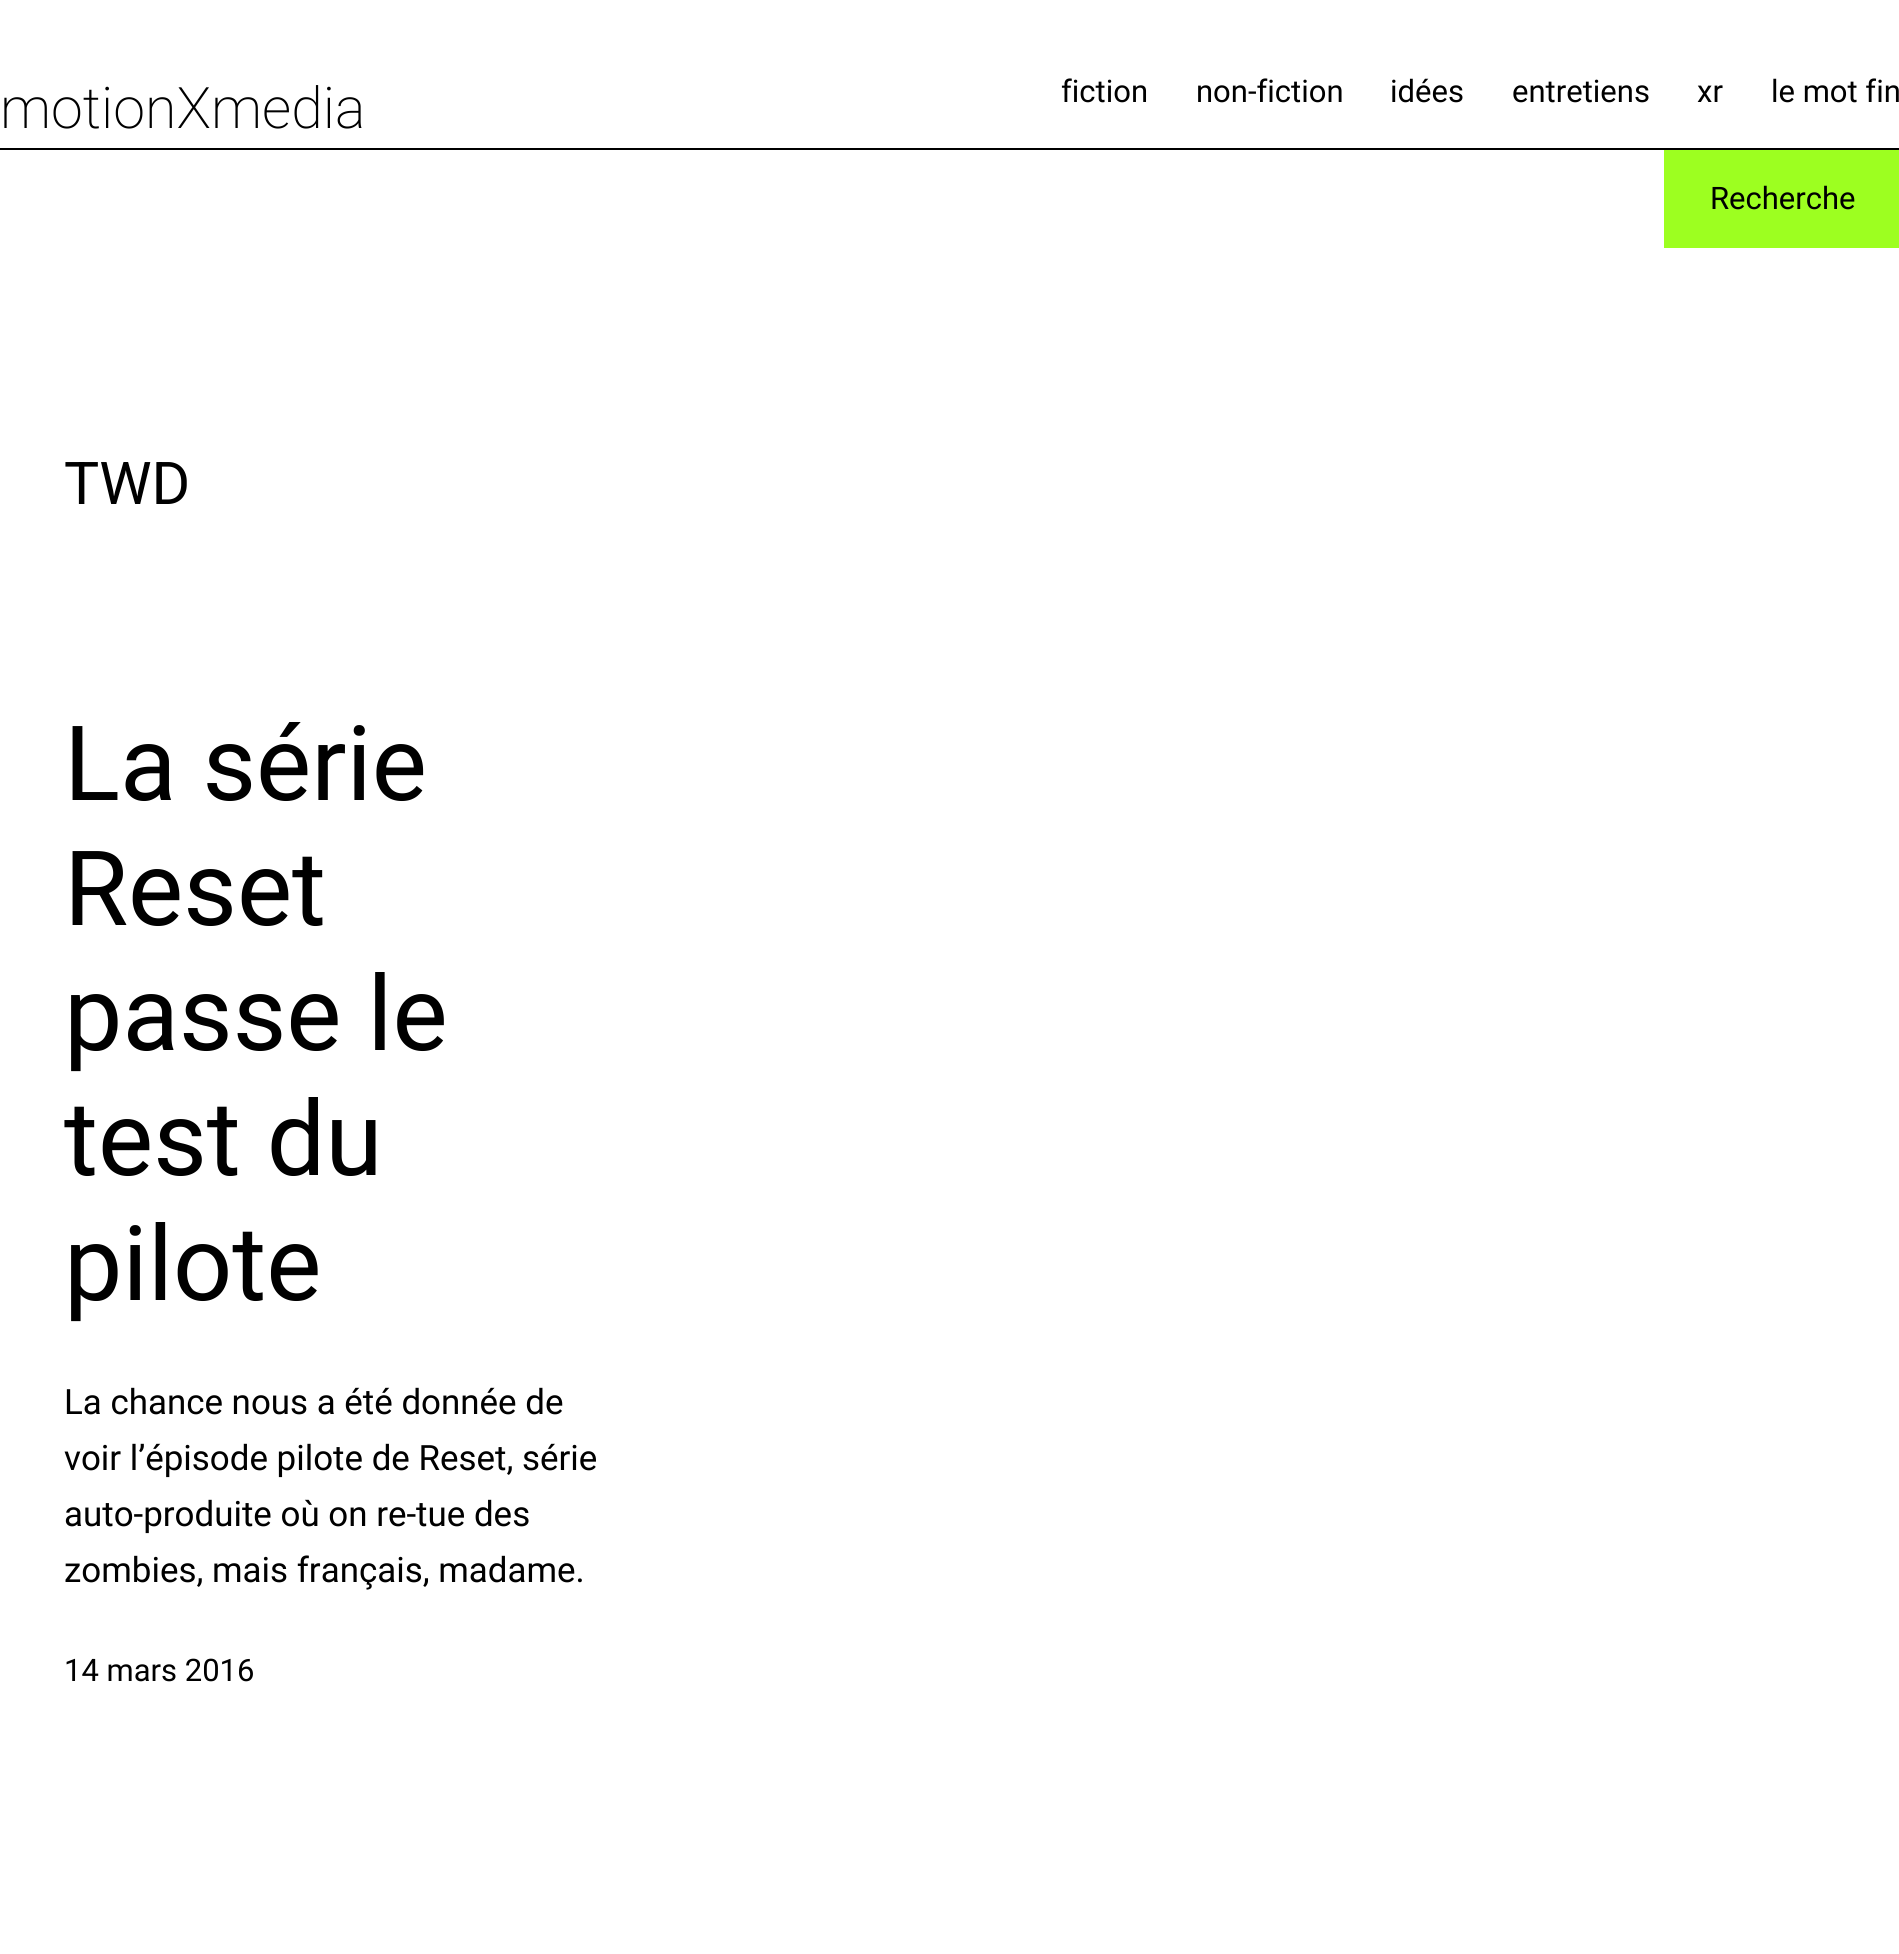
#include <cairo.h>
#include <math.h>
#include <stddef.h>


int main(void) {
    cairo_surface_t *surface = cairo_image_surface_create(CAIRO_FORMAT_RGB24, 1899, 1954);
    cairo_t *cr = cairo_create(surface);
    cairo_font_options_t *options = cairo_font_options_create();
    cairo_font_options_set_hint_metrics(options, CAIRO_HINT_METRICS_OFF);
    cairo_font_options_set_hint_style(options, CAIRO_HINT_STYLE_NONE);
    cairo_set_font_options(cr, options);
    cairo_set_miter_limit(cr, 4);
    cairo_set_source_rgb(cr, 1, 1, 1);
    cairo_paint(cr);
    cairo_set_source_rgb(cr, 0, 0, 0);
    cairo_rectangle(cr, 0, 148, 1899, 2);
    cairo_fill(cr);
    cairo_select_font_face(cr, "Roboto ExtraLight", CAIRO_FONT_SLANT_NORMAL, CAIRO_FONT_WEIGHT_NORMAL);
    cairo_set_font_size(cr, 57.25);
    cairo_move_to(cr, 0, 128);
    cairo_show_text(cr, "motionXmedia");
    cairo_select_font_face(cr, "Roboto", CAIRO_FONT_SLANT_NORMAL, CAIRO_FONT_WEIGHT_NORMAL);
    cairo_set_font_size(cr, 31);
    cairo_move_to(cr, 1061, 102);
    cairo_show_text(cr, "fiction");
    cairo_move_to(cr, 1196, 102);
    cairo_show_text(cr, "non-fiction");
    cairo_move_to(cr, 1390, 102);
    cairo_show_text(cr, "idées");
    cairo_move_to(cr, 1512, 102);
    cairo_show_text(cr, "entretiens");
    cairo_move_to(cr, 1697, 102);
    cairo_show_text(cr, "xr");
    cairo_move_to(cr, 1771, 102);
    cairo_show_text(cr, "le mot fin");
    cairo_set_source_rgb(cr, 0.616, 1, 0.125);
    cairo_rectangle(cr, 1664, 150, 235, 98);
    cairo_fill(cr);
    cairo_set_source_rgb(cr, 0, 0, 0);
    cairo_move_to(cr, 1710, 209);
    cairo_show_text(cr, "Recherche");
    cairo_set_font_size(cr, 59);
    cairo_move_to(cr, 64, 504);
    cairo_show_text(cr, "TWD");
    cairo_set_font_size(cr, 104);
    cairo_move_to(cr, 64, 800);
    cairo_show_text(cr, "La série");
    cairo_move_to(cr, 64, 925);
    cairo_show_text(cr, "Reset");
    cairo_move_to(cr, 64, 1050);
    cairo_show_text(cr, "passe le");
    cairo_move_to(cr, 64, 1175);
    cairo_show_text(cr, "test du");
    cairo_move_to(cr, 64, 1300);
    cairo_show_text(cr, "pilote");
    cairo_set_font_size(cr, 34.9);
    cairo_move_to(cr, 64, 1414);
    cairo_show_text(cr, "La chance nous a été donnée de");
    cairo_move_to(cr, 64, 1470);
    cairo_show_text(cr, "voir l’épisode pilote de Reset, série");
    cairo_move_to(cr, 64, 1526);
    cairo_show_text(cr, "auto-produite où on re-tue des");
    cairo_move_to(cr, 64, 1582);
    cairo_show_text(cr, "zombies, mais français, madame.");
    cairo_set_font_size(cr, 31);
    cairo_move_to(cr, 64, 1681);
    cairo_show_text(cr, "14 mars 2016");
    cairo_surface_write_to_png(surface, "page.png");
    cairo_font_options_destroy(options);
    cairo_destroy(cr);
    cairo_surface_destroy(surface);
    return 0;
}
